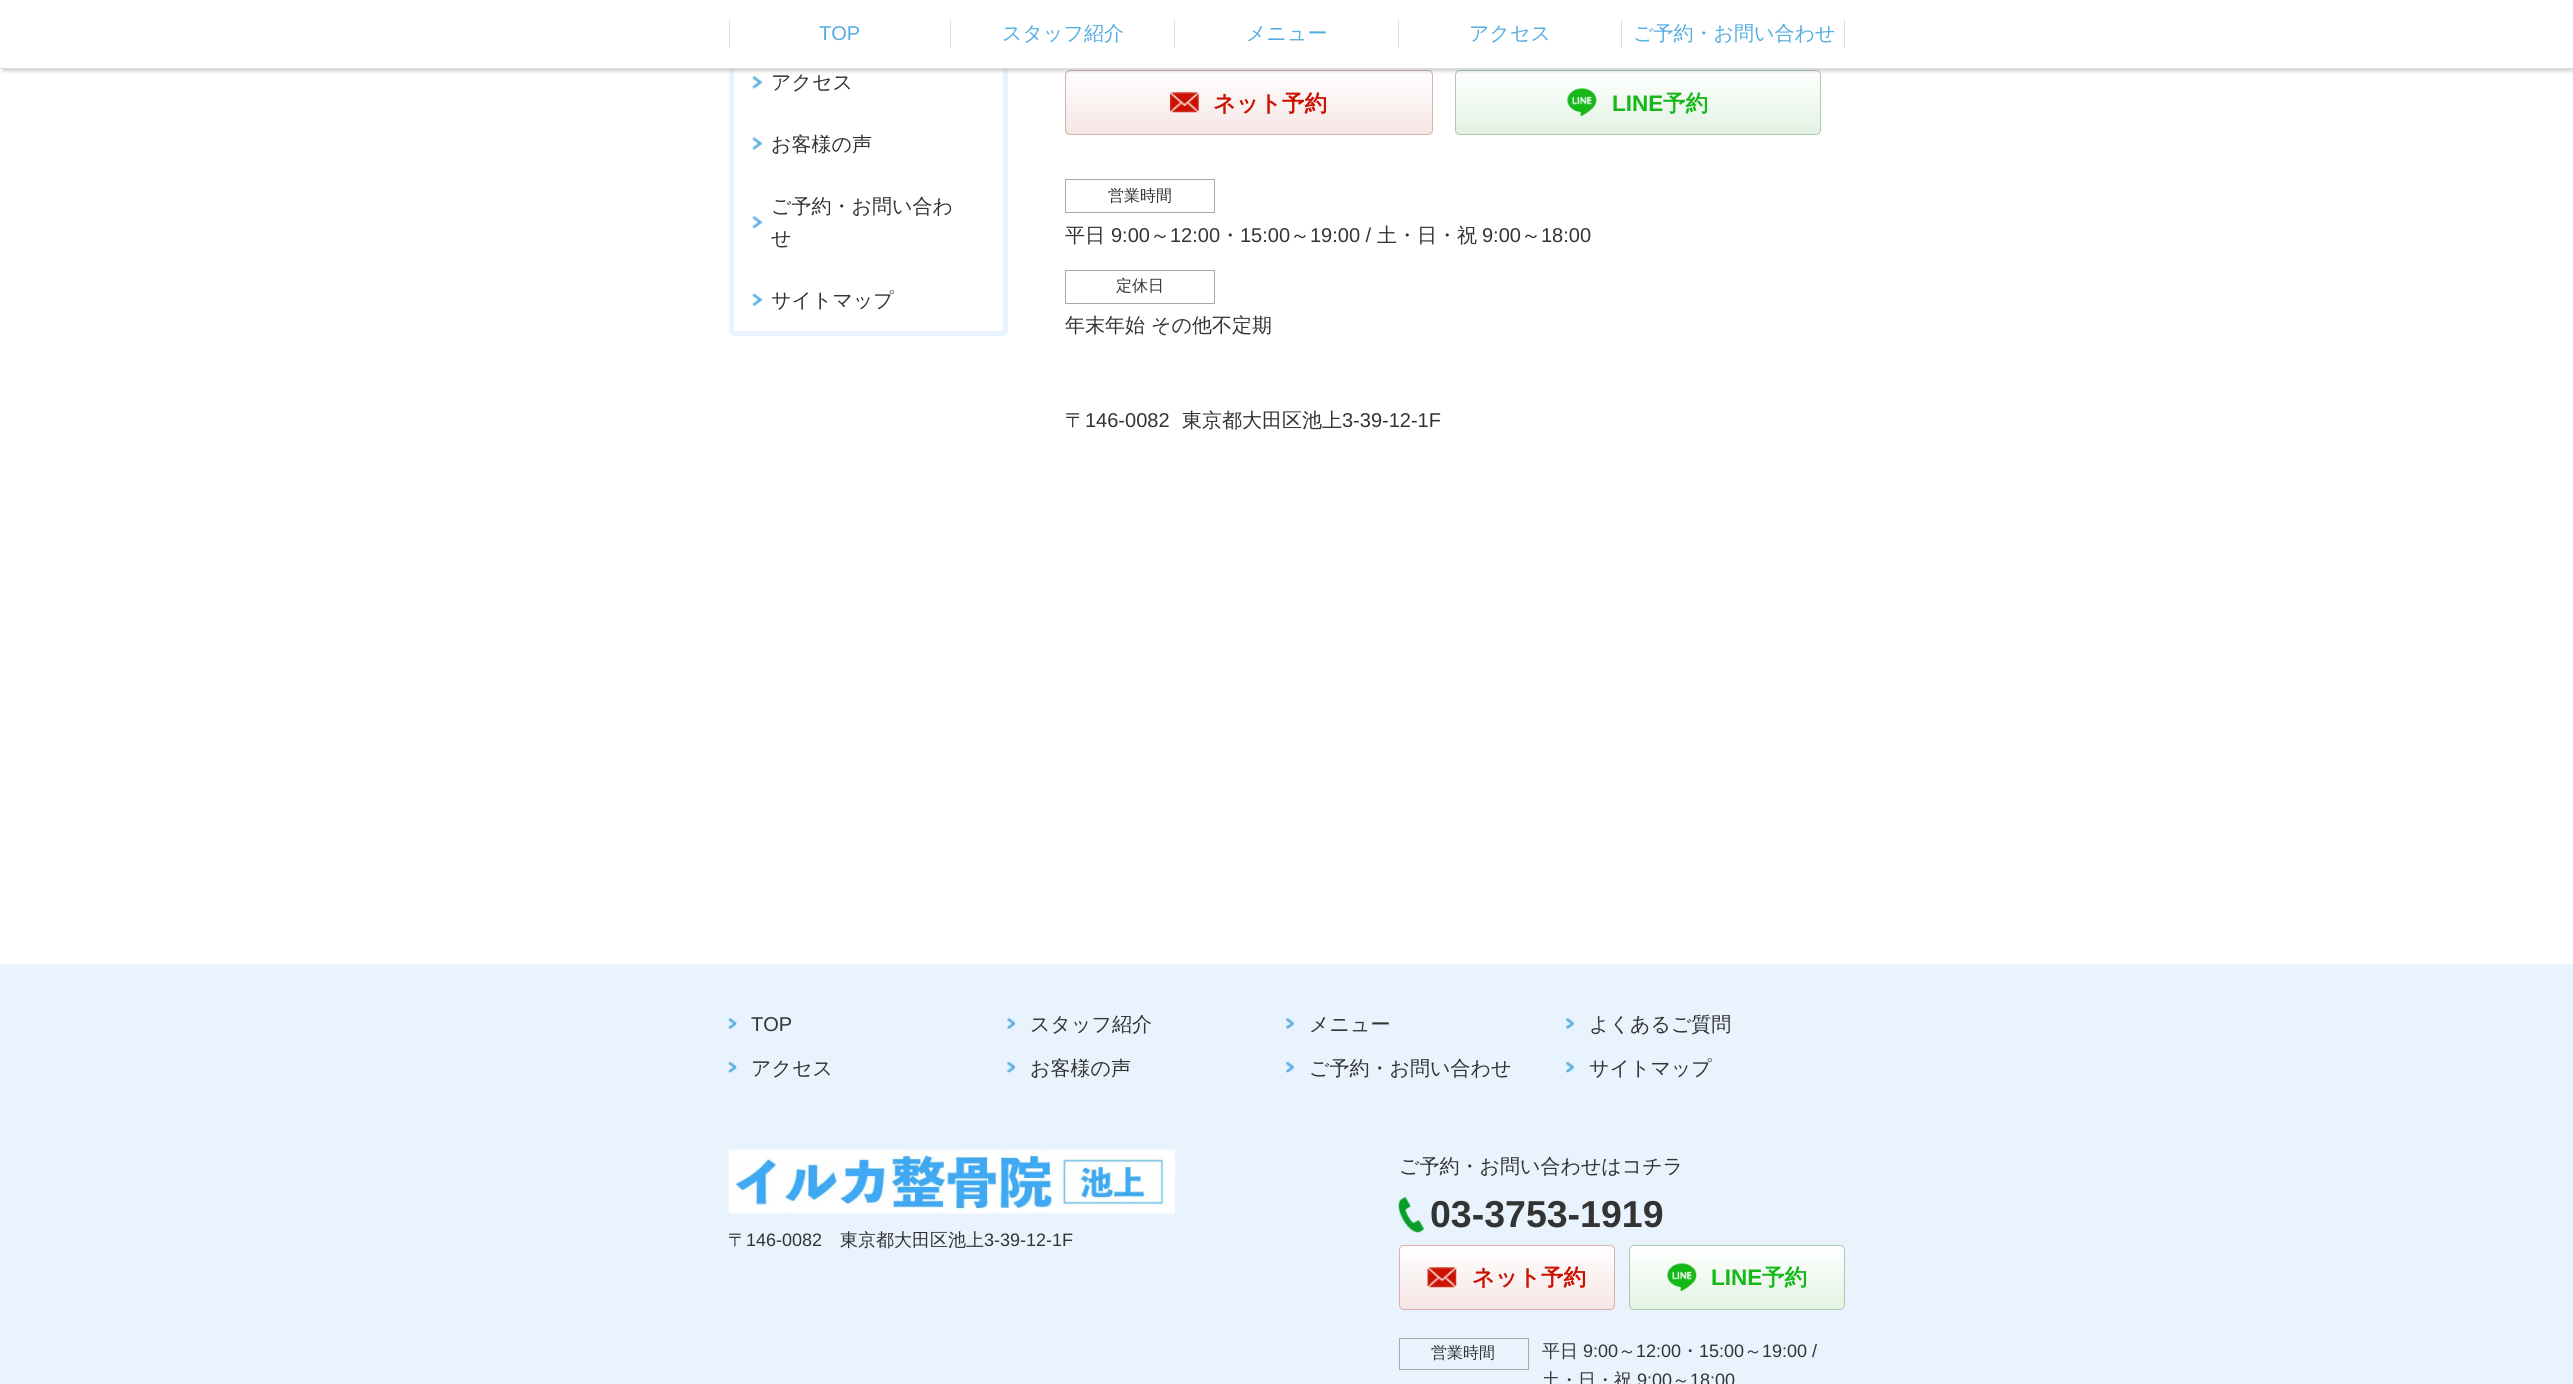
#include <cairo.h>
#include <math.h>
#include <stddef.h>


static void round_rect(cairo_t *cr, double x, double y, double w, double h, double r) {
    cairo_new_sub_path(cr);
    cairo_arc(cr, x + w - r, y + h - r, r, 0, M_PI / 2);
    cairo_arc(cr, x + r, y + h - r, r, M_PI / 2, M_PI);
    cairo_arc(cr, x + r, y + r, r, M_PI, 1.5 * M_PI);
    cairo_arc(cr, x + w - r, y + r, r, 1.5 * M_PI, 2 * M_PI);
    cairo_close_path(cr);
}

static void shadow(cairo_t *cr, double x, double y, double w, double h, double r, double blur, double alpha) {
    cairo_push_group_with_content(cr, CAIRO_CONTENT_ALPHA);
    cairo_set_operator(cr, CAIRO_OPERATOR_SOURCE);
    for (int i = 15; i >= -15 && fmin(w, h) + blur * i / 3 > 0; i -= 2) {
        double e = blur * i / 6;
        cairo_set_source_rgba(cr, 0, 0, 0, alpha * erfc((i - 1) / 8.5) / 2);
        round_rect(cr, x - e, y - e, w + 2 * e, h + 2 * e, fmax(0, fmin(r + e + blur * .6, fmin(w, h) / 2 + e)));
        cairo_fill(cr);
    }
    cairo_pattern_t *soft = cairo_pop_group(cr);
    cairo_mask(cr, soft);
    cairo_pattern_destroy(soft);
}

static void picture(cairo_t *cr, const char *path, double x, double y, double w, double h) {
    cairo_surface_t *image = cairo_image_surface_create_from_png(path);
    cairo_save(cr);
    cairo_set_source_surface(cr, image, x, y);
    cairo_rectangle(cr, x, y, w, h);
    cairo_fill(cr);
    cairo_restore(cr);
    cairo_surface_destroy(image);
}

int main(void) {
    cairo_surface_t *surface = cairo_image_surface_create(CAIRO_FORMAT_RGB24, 2573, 1384);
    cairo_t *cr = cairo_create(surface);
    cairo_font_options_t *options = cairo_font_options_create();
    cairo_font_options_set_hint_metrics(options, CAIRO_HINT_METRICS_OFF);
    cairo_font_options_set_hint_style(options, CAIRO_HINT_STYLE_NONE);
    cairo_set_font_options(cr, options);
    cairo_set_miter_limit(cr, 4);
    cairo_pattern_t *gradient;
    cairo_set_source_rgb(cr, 1, 1, 1);
    cairo_paint(cr);
    round_rect(cr, 731.5, -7.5, 274, 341, 2.5);
    cairo_set_source_rgb(cr, 0.914, 0.953, 0.992);
    cairo_set_line_width(cr, 5);
    cairo_stroke(cr);
    picture(cr, "img1.png", 752, 76, 11, 13);
    cairo_save(cr);
    round_rect(cr, 1065, 70, 368, 65, 5);
    cairo_clip(cr);
    gradient = cairo_pattern_create_linear(1249, 71, 1249, 134);
    cairo_pattern_add_color_stop_rgba(gradient, 0, 1, 1, 1, 1);
    cairo_pattern_add_color_stop_rgba(gradient, 1, 0.961, 0.902, 0.898, 1);
    cairo_set_source(cr, gradient);
    cairo_pattern_destroy(gradient);
    cairo_rectangle(cr, 1065, 71, 368, 63);
    cairo_fill(cr);
    cairo_restore(cr);
    round_rect(cr, 1065.5, 70.5, 367, 64, 4.5);
    cairo_set_source_rgb(cr, 0.847, 0.69, 0.678);
    cairo_set_line_width(cr, 1);
    cairo_stroke(cr);
    cairo_save(cr);
    round_rect(cr, 1455, 70, 366, 65, 5);
    cairo_clip(cr);
    gradient = cairo_pattern_create_linear(1638, 71, 1638, 134);
    cairo_pattern_add_color_stop_rgba(gradient, 0, 1, 1, 1, 1);
    cairo_pattern_add_color_stop_rgba(gradient, 1, 0.886, 0.949, 0.89, 1);
    cairo_set_source(cr, gradient);
    cairo_pattern_destroy(gradient);
    cairo_rectangle(cr, 1455, 71, 366, 63);
    cairo_fill(cr);
    cairo_restore(cr);
    round_rect(cr, 1455.5, 70.5, 365, 64, 4.5);
    cairo_set_source_rgb(cr, 0.671, 0.796, 0.682);
    cairo_stroke(cr);
    cairo_set_source_rgb(cr, 0, 0, 0);
    shadow(cr, 3, 3, 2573, 68, 0, 2, 0.2);
    cairo_set_source_rgb(cr, 1, 1, 1);
    cairo_rectangle(cr, 0, 0, 2573, 68);
    cairo_fill(cr);
    cairo_set_source_rgb(cr, 0.867, 0.867, 0.867);
    cairo_rectangle(cr, 0, 68, 2573, 1);
    cairo_fill(cr);
    cairo_rectangle(cr, 729, 20, 1, 28);
    cairo_fill(cr);
    cairo_select_font_face(cr, "Liberation Sans", CAIRO_FONT_SLANT_NORMAL, CAIRO_FONT_WEIGHT_NORMAL);
    cairo_set_font_size(cr, 20);
    cairo_set_source_rgb(cr, 0.333, 0.675, 0.882);
    cairo_move_to(cr, 819, 40);
    cairo_show_text(cr, "TOP");
    cairo_set_source_rgb(cr, 0.867, 0.867, 0.867);
    cairo_rectangle(cr, 950, 20, 1, 28);
    cairo_fill(cr);
    cairo_select_font_face(cr, "WenQuanYi Zen Hei Medium", CAIRO_FONT_SLANT_NORMAL, CAIRO_FONT_WEIGHT_NORMAL);
    cairo_set_source_rgb(cr, 0.333, 0.675, 0.882);
    cairo_move_to(cr, 1002, 40);
    cairo_show_text(cr, "スタッフ紹介");
    cairo_set_source_rgb(cr, 0.867, 0.867, 0.867);
    cairo_rectangle(cr, 1174, 20, 1, 28);
    cairo_fill(cr);
    cairo_set_source_rgb(cr, 0.333, 0.675, 0.882);
    cairo_move_to(cr, 1246, 40);
    cairo_show_text(cr, "メニュー");
    cairo_set_source_rgb(cr, 0.867, 0.867, 0.867);
    cairo_rectangle(cr, 1398, 20, 1, 28);
    cairo_fill(cr);
    cairo_set_source_rgb(cr, 0.333, 0.675, 0.882);
    cairo_move_to(cr, 1469, 40);
    cairo_show_text(cr, "アクセス");
    cairo_set_source_rgb(cr, 0.867, 0.867, 0.867);
    cairo_rectangle(cr, 1621, 20, 1, 28);
    cairo_fill(cr);
    cairo_set_source_rgb(cr, 0.333, 0.675, 0.882);
    cairo_move_to(cr, 1633, 40);
    cairo_show_text(cr, "ご予約・お問い合わせ");
    cairo_set_source_rgb(cr, 0.867, 0.867, 0.867);
    cairo_rectangle(cr, 1844, 20, 1, 28);
    cairo_fill(cr);
    cairo_set_source_rgb(cr, 0.2, 0.2, 0.2);
    cairo_move_to(cr, 771, 89);
    cairo_show_text(cr, "アクセス");
    picture(cr, "img2.png", 752, 137, 11, 13);
    cairo_move_to(cr, 771, 151);
    cairo_show_text(cr, "お客様の声");
    picture(cr, "img1.png", 752, 216, 11, 13);
    cairo_move_to(cr, 771, 213);
    cairo_show_text(cr, "ご予約・お問い合わ");
    cairo_move_to(cr, 771, 245);
    cairo_show_text(cr, "せ");
    picture(cr, "img3.png", 752, 293, 11, 13);
    cairo_move_to(cr, 771, 307);
    cairo_show_text(cr, "サイトマップ");
    picture(cr, "img4.png", 1170, 92, 29, 21);
    cairo_select_font_face(cr, "WenQuanYi Zen Hei", CAIRO_FONT_SLANT_NORMAL, CAIRO_FONT_WEIGHT_BOLD);
    cairo_set_font_size(cr, 22.5);
    cairo_set_source_rgb(cr, 0.8, 0.067, 0);
    cairo_move_to(cr, 1213, 111);
    cairo_show_text(cr, "ネット予約");
    picture(cr, "img5.png", 1567, 88, 30, 28);
    cairo_select_font_face(cr, "Liberation Sans", CAIRO_FONT_SLANT_NORMAL, CAIRO_FONT_WEIGHT_BOLD);
    cairo_set_source_rgb(cr, 0.082, 0.722, 0.09);
    cairo_move_to(cr, 1612, 111);
    cairo_show_text(cr, "LINE");
    cairo_select_font_face(cr, "WenQuanYi Zen Hei", CAIRO_FONT_SLANT_NORMAL, CAIRO_FONT_WEIGHT_BOLD);
    cairo_move_to(cr, 1663, 111);
    cairo_show_text(cr, "予約");
    cairo_rectangle(cr, 1065.5, 179.5, 149, 33);
    cairo_set_source_rgb(cr, 0.667, 0.667, 0.667);
    cairo_stroke(cr);
    cairo_select_font_face(cr, "WenQuanYi Zen Hei Medium", CAIRO_FONT_SLANT_NORMAL, CAIRO_FONT_WEIGHT_NORMAL);
    cairo_set_font_size(cr, 16);
    cairo_set_source_rgb(cr, 0.2, 0.2, 0.2);
    cairo_move_to(cr, 1108, 201);
    cairo_show_text(cr, "営業時間");
    cairo_set_font_size(cr, 20);
    cairo_move_to(cr, 1065, 242);
    cairo_show_text(cr, "平日");
    cairo_select_font_face(cr, "Liberation Sans", CAIRO_FONT_SLANT_NORMAL, CAIRO_FONT_WEIGHT_NORMAL);
    cairo_move_to(cr, 1111, 242);
    cairo_show_text(cr, "9:00");
    cairo_select_font_face(cr, "WenQuanYi Zen Hei Medium", CAIRO_FONT_SLANT_NORMAL, CAIRO_FONT_WEIGHT_NORMAL);
    cairo_move_to(cr, 1150, 242);
    cairo_show_text(cr, "～");
    cairo_select_font_face(cr, "Liberation Sans", CAIRO_FONT_SLANT_NORMAL, CAIRO_FONT_WEIGHT_NORMAL);
    cairo_move_to(cr, 1170, 242);
    cairo_show_text(cr, "12:00");
    cairo_select_font_face(cr, "WenQuanYi Zen Hei Medium", CAIRO_FONT_SLANT_NORMAL, CAIRO_FONT_WEIGHT_NORMAL);
    cairo_move_to(cr, 1220, 242);
    cairo_show_text(cr, "・");
    cairo_select_font_face(cr, "Liberation Sans", CAIRO_FONT_SLANT_NORMAL, CAIRO_FONT_WEIGHT_NORMAL);
    cairo_move_to(cr, 1240, 242);
    cairo_show_text(cr, "15:00");
    cairo_select_font_face(cr, "WenQuanYi Zen Hei Medium", CAIRO_FONT_SLANT_NORMAL, CAIRO_FONT_WEIGHT_NORMAL);
    cairo_move_to(cr, 1290, 242);
    cairo_show_text(cr, "～");
    cairo_select_font_face(cr, "Liberation Sans", CAIRO_FONT_SLANT_NORMAL, CAIRO_FONT_WEIGHT_NORMAL);
    cairo_move_to(cr, 1310, 242);
    cairo_show_text(cr, "19:00 /");
    cairo_select_font_face(cr, "WenQuanYi Zen Hei Medium", CAIRO_FONT_SLANT_NORMAL, CAIRO_FONT_WEIGHT_NORMAL);
    cairo_move_to(cr, 1377, 242);
    cairo_show_text(cr, "土・日・祝");
    cairo_select_font_face(cr, "Liberation Sans", CAIRO_FONT_SLANT_NORMAL, CAIRO_FONT_WEIGHT_NORMAL);
    cairo_move_to(cr, 1482, 242);
    cairo_show_text(cr, "9:00");
    cairo_select_font_face(cr, "WenQuanYi Zen Hei Medium", CAIRO_FONT_SLANT_NORMAL, CAIRO_FONT_WEIGHT_NORMAL);
    cairo_move_to(cr, 1521, 242);
    cairo_show_text(cr, "～");
    cairo_select_font_face(cr, "Liberation Sans", CAIRO_FONT_SLANT_NORMAL, CAIRO_FONT_WEIGHT_NORMAL);
    cairo_move_to(cr, 1541, 242);
    cairo_show_text(cr, "18:00");
    cairo_rectangle(cr, 1065.5, 270.5, 149, 33);
    cairo_set_source_rgb(cr, 0.667, 0.667, 0.667);
    cairo_stroke(cr);
    cairo_select_font_face(cr, "WenQuanYi Zen Hei Medium", CAIRO_FONT_SLANT_NORMAL, CAIRO_FONT_WEIGHT_NORMAL);
    cairo_set_font_size(cr, 16);
    cairo_set_source_rgb(cr, 0.2, 0.2, 0.2);
    cairo_move_to(cr, 1116, 291);
    cairo_show_text(cr, "定休日");
    cairo_set_font_size(cr, 20);
    cairo_move_to(cr, 1065, 332);
    cairo_show_text(cr, "年末年始 その他不定期");
    cairo_move_to(cr, 1065, 427);
    cairo_show_text(cr, "〒");
    cairo_select_font_face(cr, "Liberation Sans", CAIRO_FONT_SLANT_NORMAL, CAIRO_FONT_WEIGHT_NORMAL);
    cairo_move_to(cr, 1085, 427);
    cairo_show_text(cr, "146-0082");
    cairo_select_font_face(cr, "WenQuanYi Zen Hei Medium", CAIRO_FONT_SLANT_NORMAL, CAIRO_FONT_WEIGHT_NORMAL);
    cairo_move_to(cr, 1182, 427);
    cairo_show_text(cr, "東京都大田区池上");
    cairo_select_font_face(cr, "Liberation Sans", CAIRO_FONT_SLANT_NORMAL, CAIRO_FONT_WEIGHT_NORMAL);
    cairo_move_to(cr, 1342, 427);
    cairo_show_text(cr, "3-39-12-1F");
    cairo_set_source_rgb(cr, 0.914, 0.953, 0.992);
    cairo_rectangle(cr, 0, 964, 2573, 420);
    cairo_fill(cr);
    picture(cr, "img6.png", 728, 1018, 9, 11);
    cairo_set_source_rgb(cr, 0.2, 0.2, 0.2);
    cairo_move_to(cr, 751, 1031);
    cairo_show_text(cr, "TOP");
    picture(cr, "img7.png", 1007, 1018, 8, 11);
    cairo_select_font_face(cr, "WenQuanYi Zen Hei Medium", CAIRO_FONT_SLANT_NORMAL, CAIRO_FONT_WEIGHT_NORMAL);
    cairo_move_to(cr, 1030, 1031);
    cairo_show_text(cr, "スタッフ紹介");
    picture(cr, "img8.png", 1286, 1018, 8, 11);
    cairo_move_to(cr, 1309, 1031);
    cairo_show_text(cr, "メニュー");
    picture(cr, "img8.png", 1566, 1018, 8, 11);
    cairo_move_to(cr, 1589, 1031);
    cairo_show_text(cr, "よくあるご質問");
    picture(cr, "img9.png", 728, 1062, 9, 11);
    cairo_move_to(cr, 751, 1075);
    cairo_show_text(cr, "アクセス");
    picture(cr, "img10.png", 1007, 1062, 8, 11);
    cairo_move_to(cr, 1030, 1075);
    cairo_show_text(cr, "お客様の声");
    picture(cr, "img11.png", 1286, 1062, 8, 11);
    cairo_move_to(cr, 1309, 1075);
    cairo_show_text(cr, "ご予約・お問い合わせ");
    picture(cr, "img11.png", 1566, 1062, 8, 11);
    cairo_move_to(cr, 1589, 1075);
    cairo_show_text(cr, "サイトマップ");
    picture(cr, "img12.png", 728, 1149, 447, 65);
    cairo_set_font_size(cr, 18);
    cairo_move_to(cr, 728, 1246);
    cairo_show_text(cr, "〒");
    cairo_select_font_face(cr, "Liberation Sans", CAIRO_FONT_SLANT_NORMAL, CAIRO_FONT_WEIGHT_NORMAL);
    cairo_move_to(cr, 746, 1246);
    cairo_show_text(cr, "146-0082");
    cairo_select_font_face(cr, "WenQuanYi Zen Hei Medium", CAIRO_FONT_SLANT_NORMAL, CAIRO_FONT_WEIGHT_NORMAL);
    cairo_move_to(cr, 840, 1246);
    cairo_show_text(cr, "東京都大田区池上");
    cairo_select_font_face(cr, "Liberation Sans", CAIRO_FONT_SLANT_NORMAL, CAIRO_FONT_WEIGHT_NORMAL);
    cairo_move_to(cr, 984, 1246);
    cairo_show_text(cr, "3-39-12-1F");
    cairo_select_font_face(cr, "WenQuanYi Zen Hei Medium", CAIRO_FONT_SLANT_NORMAL, CAIRO_FONT_WEIGHT_NORMAL);
    cairo_set_font_size(cr, 20);
    cairo_move_to(cr, 1399, 1173);
    cairo_show_text(cr, "ご予約・お問い合わせはコチラ");
    picture(cr, "img13.png", 1398, 1197, 26, 36);
    cairo_select_font_face(cr, "Liberation Sans", CAIRO_FONT_SLANT_NORMAL, CAIRO_FONT_WEIGHT_BOLD);
    cairo_set_font_size(cr, 37.5);
    cairo_move_to(cr, 1430, 1227);
    cairo_show_text(cr, "03-3753-1919");
    cairo_save(cr);
    round_rect(cr, 1399, 1245, 216, 65, 5);
    cairo_clip(cr);
    gradient = cairo_pattern_create_linear(1507, 1246, 1507, 1309);
    cairo_pattern_add_color_stop_rgba(gradient, 0, 1, 1, 1, 1);
    cairo_pattern_add_color_stop_rgba(gradient, 1, 0.961, 0.902, 0.898, 1);
    cairo_set_source(cr, gradient);
    cairo_pattern_destroy(gradient);
    cairo_rectangle(cr, 1399, 1246, 216, 63);
    cairo_fill(cr);
    cairo_restore(cr);
    round_rect(cr, 1399.5, 1245.5, 215, 64, 4.5);
    cairo_set_source_rgb(cr, 0.847, 0.69, 0.678);
    cairo_stroke(cr);
    picture(cr, "img14.png", 1427, 1267, 30, 21);
    cairo_select_font_face(cr, "WenQuanYi Zen Hei", CAIRO_FONT_SLANT_NORMAL, CAIRO_FONT_WEIGHT_BOLD);
    cairo_set_font_size(cr, 22.5);
    cairo_set_source_rgb(cr, 0.8, 0.067, 0);
    cairo_move_to(cr, 1472, 1285);
    cairo_show_text(cr, "ネット予約");
    cairo_save(cr);
    round_rect(cr, 1629, 1245, 216, 65, 5);
    cairo_clip(cr);
    gradient = cairo_pattern_create_linear(1737, 1246, 1737, 1309);
    cairo_pattern_add_color_stop_rgba(gradient, 0, 1, 1, 1, 1);
    cairo_pattern_add_color_stop_rgba(gradient, 1, 0.886, 0.949, 0.89, 1);
    cairo_set_source(cr, gradient);
    cairo_pattern_destroy(gradient);
    cairo_rectangle(cr, 1629, 1246, 216, 63);
    cairo_fill(cr);
    cairo_restore(cr);
    round_rect(cr, 1629.5, 1245.5, 215, 64, 4.5);
    cairo_set_source_rgb(cr, 0.671, 0.796, 0.682);
    cairo_stroke(cr);
    picture(cr, "img5.png", 1667, 1263, 30, 28);
    cairo_select_font_face(cr, "Liberation Sans", CAIRO_FONT_SLANT_NORMAL, CAIRO_FONT_WEIGHT_BOLD);
    cairo_set_source_rgb(cr, 0.082, 0.722, 0.09);
    cairo_move_to(cr, 1711, 1285);
    cairo_show_text(cr, "LINE");
    cairo_select_font_face(cr, "WenQuanYi Zen Hei", CAIRO_FONT_SLANT_NORMAL, CAIRO_FONT_WEIGHT_BOLD);
    cairo_move_to(cr, 1762, 1285);
    cairo_show_text(cr, "予約");
    cairo_rectangle(cr, 1399.5, 1338.5, 129, 31);
    cairo_set_source_rgb(cr, 0.667, 0.667, 0.667);
    cairo_stroke(cr);
    cairo_select_font_face(cr, "WenQuanYi Zen Hei Medium", CAIRO_FONT_SLANT_NORMAL, CAIRO_FONT_WEIGHT_NORMAL);
    cairo_set_font_size(cr, 16);
    cairo_set_source_rgb(cr, 0.2, 0.2, 0.2);
    cairo_move_to(cr, 1431, 1358);
    cairo_show_text(cr, "営業時間");
    cairo_set_font_size(cr, 18);
    cairo_move_to(cr, 1542, 1357);
    cairo_show_text(cr, "平日");
    cairo_select_font_face(cr, "Liberation Sans", CAIRO_FONT_SLANT_NORMAL, CAIRO_FONT_WEIGHT_NORMAL);
    cairo_move_to(cr, 1583, 1357);
    cairo_show_text(cr, "9:00");
    cairo_select_font_face(cr, "WenQuanYi Zen Hei Medium", CAIRO_FONT_SLANT_NORMAL, CAIRO_FONT_WEIGHT_NORMAL);
    cairo_move_to(cr, 1618, 1357);
    cairo_show_text(cr, "～");
    cairo_select_font_face(cr, "Liberation Sans", CAIRO_FONT_SLANT_NORMAL, CAIRO_FONT_WEIGHT_NORMAL);
    cairo_move_to(cr, 1636, 1357);
    cairo_show_text(cr, "12:00");
    cairo_select_font_face(cr, "WenQuanYi Zen Hei Medium", CAIRO_FONT_SLANT_NORMAL, CAIRO_FONT_WEIGHT_NORMAL);
    cairo_move_to(cr, 1681, 1357);
    cairo_show_text(cr, "・");
    cairo_select_font_face(cr, "Liberation Sans", CAIRO_FONT_SLANT_NORMAL, CAIRO_FONT_WEIGHT_NORMAL);
    cairo_move_to(cr, 1699, 1357);
    cairo_show_text(cr, "15:00");
    cairo_select_font_face(cr, "WenQuanYi Zen Hei Medium", CAIRO_FONT_SLANT_NORMAL, CAIRO_FONT_WEIGHT_NORMAL);
    cairo_move_to(cr, 1744, 1357);
    cairo_show_text(cr, "～");
    cairo_select_font_face(cr, "Liberation Sans", CAIRO_FONT_SLANT_NORMAL, CAIRO_FONT_WEIGHT_NORMAL);
    cairo_move_to(cr, 1762, 1357);
    cairo_show_text(cr, "19:00 /");
    cairo_select_font_face(cr, "WenQuanYi Zen Hei Medium", CAIRO_FONT_SLANT_NORMAL, CAIRO_FONT_WEIGHT_NORMAL);
    cairo_move_to(cr, 1542, 1386);
    cairo_show_text(cr, "土・日・祝");
    cairo_select_font_face(cr, "Liberation Sans", CAIRO_FONT_SLANT_NORMAL, CAIRO_FONT_WEIGHT_NORMAL);
    cairo_move_to(cr, 1637, 1386);
    cairo_show_text(cr, "9:00");
    cairo_select_font_face(cr, "WenQuanYi Zen Hei Medium", CAIRO_FONT_SLANT_NORMAL, CAIRO_FONT_WEIGHT_NORMAL);
    cairo_move_to(cr, 1672, 1386);
    cairo_show_text(cr, "～");
    cairo_select_font_face(cr, "Liberation Sans", CAIRO_FONT_SLANT_NORMAL, CAIRO_FONT_WEIGHT_NORMAL);
    cairo_move_to(cr, 1690, 1386);
    cairo_show_text(cr, "18:00");
    cairo_surface_write_to_png(surface, "page.png");
    cairo_font_options_destroy(options);
    cairo_destroy(cr);
    cairo_surface_destroy(surface);
    return 0;
}
